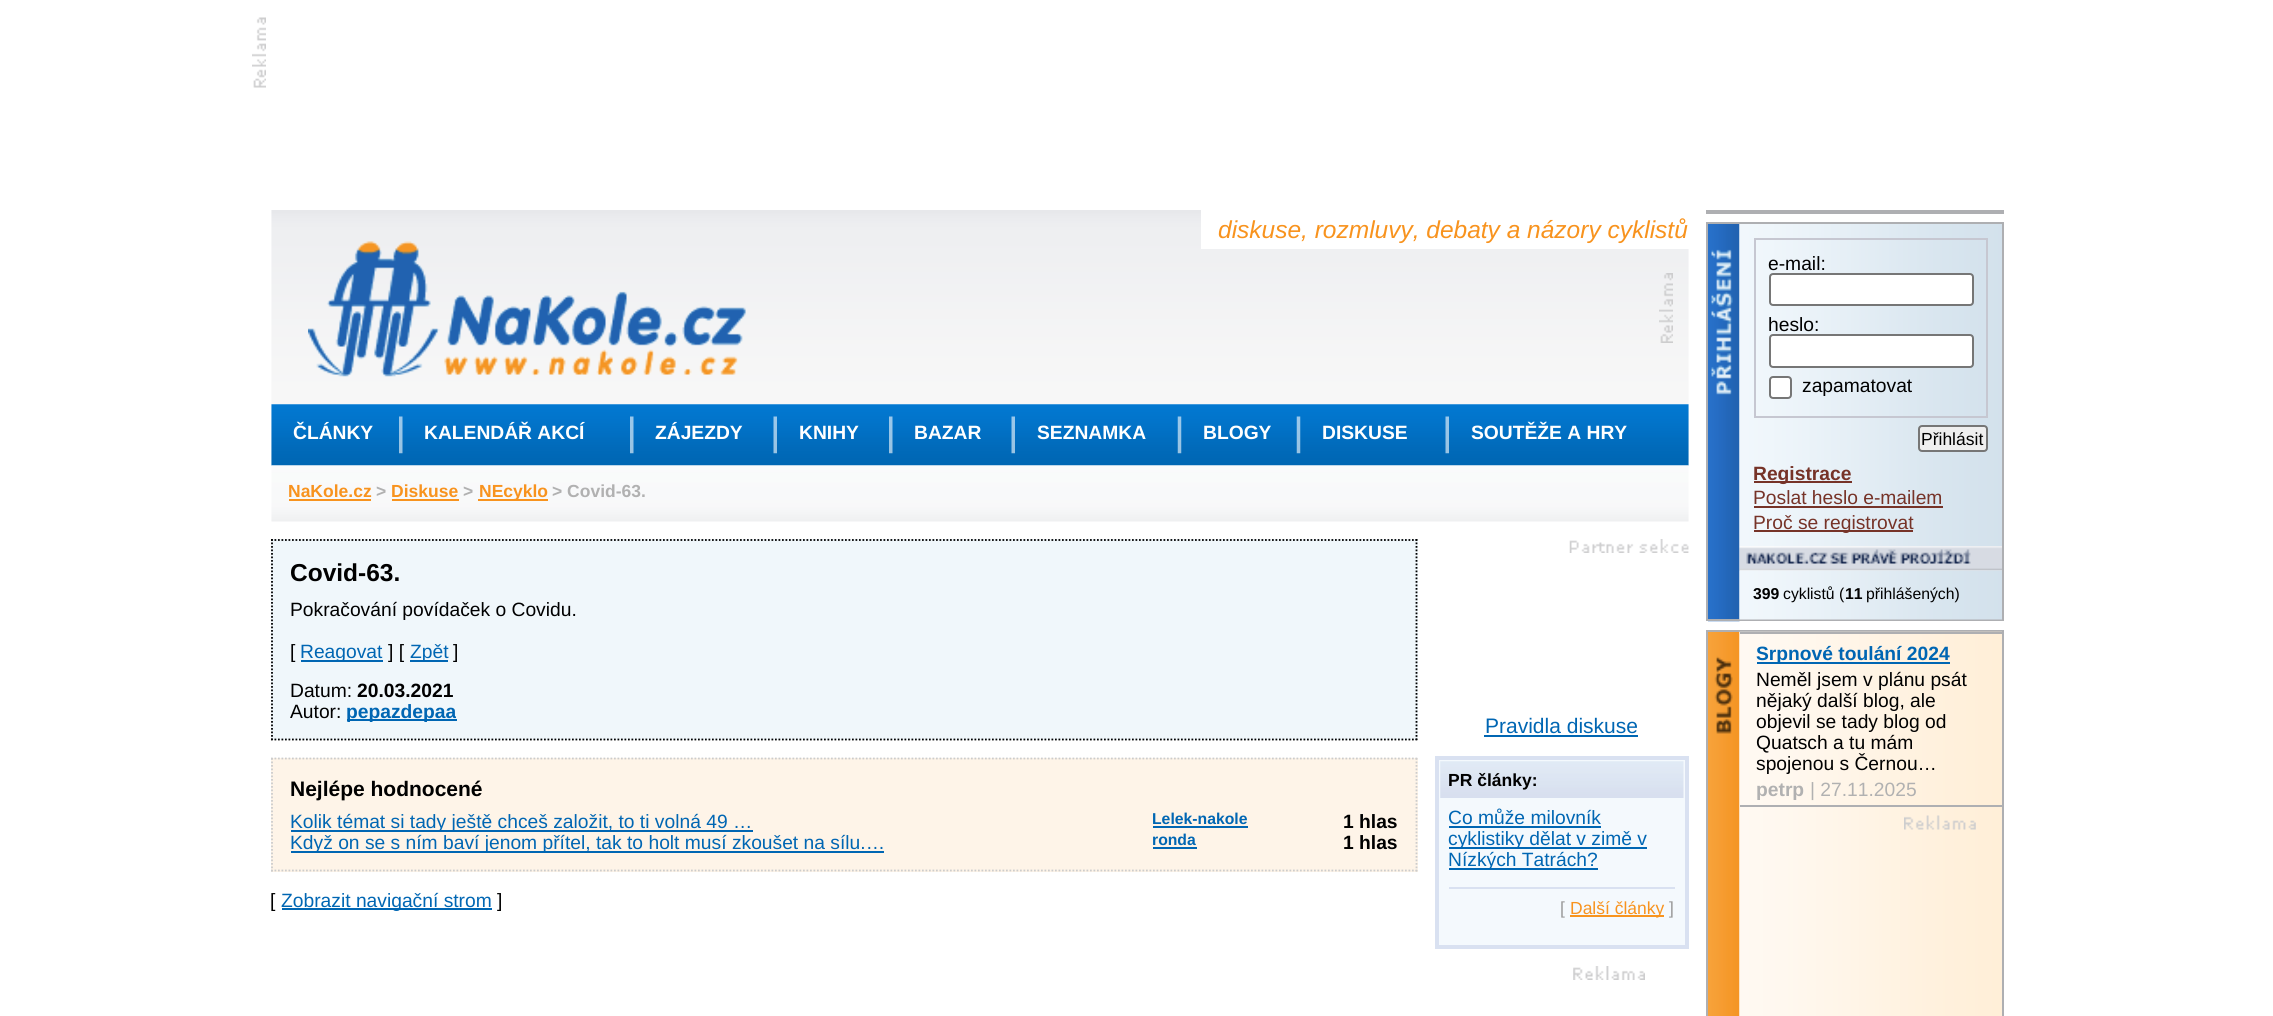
#include <cairo.h>
#include <math.h>
#include <stddef.h>


static void round_rect(cairo_t *cr, double x, double y, double w, double h, double r) {
    cairo_new_sub_path(cr);
    cairo_arc(cr, x + w - r, y + h - r, r, 0, M_PI / 2);
    cairo_arc(cr, x + r, y + h - r, r, M_PI / 2, M_PI);
    cairo_arc(cr, x + r, y + r, r, M_PI, 1.5 * M_PI);
    cairo_arc(cr, x + w - r, y + r, r, 1.5 * M_PI, 2 * M_PI);
    cairo_close_path(cr);
}

static void picture(cairo_t *cr, const char *path, double x, double y, double w, double h) {
    cairo_surface_t *image = cairo_image_surface_create_from_png(path);
    cairo_save(cr);
    cairo_set_source_surface(cr, image, x, y);
    cairo_rectangle(cr, x, y, w, h);
    cairo_fill(cr);
    cairo_restore(cr);
    cairo_surface_destroy(image);
}

int main(void) {
    cairo_surface_t *surface = cairo_image_surface_create(CAIRO_FORMAT_RGB24, 2273, 1016);
    cairo_t *cr = cairo_create(surface);
    cairo_font_options_t *options = cairo_font_options_create();
    cairo_font_options_set_hint_metrics(options, CAIRO_HINT_METRICS_OFF);
    cairo_font_options_set_hint_style(options, CAIRO_HINT_STYLE_NONE);
    cairo_set_font_options(cr, options);
    cairo_set_miter_limit(cr, 4);
    cairo_set_source_rgb(cr, 1, 1, 1);
    cairo_paint(cr);
    picture(cr, "img1.png", 252, 17, 14, 71);
    picture(cr, "img2.png", 271, 210, 1418, 194);
    cairo_set_source_rgb(cr, 1, 1, 1);
    cairo_rectangle(cr, 1201, 210, 488, 39);
    cairo_fill(cr);
    cairo_select_font_face(cr, "Liberation Sans", CAIRO_FONT_SLANT_ITALIC, CAIRO_FONT_WEIGHT_NORMAL);
    cairo_set_font_size(cr, 24.5);
    cairo_set_source_rgb(cr, 0.969, 0.576, 0.118);
    cairo_move_to(cr, 1218, 238);
    cairo_show_text(cr, "diskuse, rozmluvy, debaty a názory cyklistů");
    picture(cr, "img3.png", 308, 241, 438, 136);
    picture(cr, "img4.png", 1659, 273, 14, 70);
    picture(cr, "img5.png", 271, 404, 1418, 62);
    cairo_select_font_face(cr, "Liberation Sans", CAIRO_FONT_SLANT_NORMAL, CAIRO_FONT_WEIGHT_BOLD);
    cairo_set_font_size(cr, 19.25);
    cairo_set_source_rgb(cr, 1, 1, 1);
    cairo_move_to(cr, 293, 439);
    cairo_show_text(cr, "ČLÁNKY");
    picture(cr, "img6.png", 399, 416, 4, 38);
    cairo_move_to(cr, 424, 439);
    cairo_show_text(cr, "KALENDÁŘ AKCÍ");
    picture(cr, "img6.png", 630, 416, 4, 38);
    cairo_move_to(cr, 655, 439);
    cairo_show_text(cr, "ZÁJEZDY");
    picture(cr, "img7.png", 773, 416, 4, 38);
    cairo_move_to(cr, 799, 439);
    cairo_show_text(cr, "KNIHY");
    picture(cr, "img6.png", 889, 416, 4, 38);
    cairo_move_to(cr, 914, 439);
    cairo_show_text(cr, "BAZAR");
    picture(cr, "img7.png", 1011, 416, 4, 38);
    cairo_move_to(cr, 1037, 439);
    cairo_show_text(cr, "SEZNAMKA");
    picture(cr, "img8.png", 1177, 416, 5, 38);
    cairo_move_to(cr, 1203, 439);
    cairo_show_text(cr, "BLOGY");
    picture(cr, "img8.png", 1296, 416, 5, 38);
    cairo_move_to(cr, 1322, 439);
    cairo_show_text(cr, "DISKUSE");
    picture(cr, "img7.png", 1445, 416, 4, 38);
    cairo_move_to(cr, 1471, 439);
    cairo_show_text(cr, "SOUTĚŽE A HRY");
    picture(cr, "img9.png", 271, 465, 1418, 57);
    cairo_set_font_size(cr, 17.5);
    cairo_set_source_rgb(cr, 0.969, 0.576, 0.118);
    cairo_move_to(cr, 288, 497);
    cairo_show_text(cr, "NaKole.cz");
    cairo_rectangle(cr, 289, 499, 82, 2);
    cairo_fill(cr);
    cairo_set_source_rgb(cr, 0.694, 0.694, 0.694);
    cairo_move_to(cr, 376, 497);
    cairo_show_text(cr, ">");
    cairo_set_source_rgb(cr, 0.969, 0.576, 0.118);
    cairo_move_to(cr, 391, 497);
    cairo_show_text(cr, "Diskuse");
    cairo_rectangle(cr, 392, 499, 67, 2);
    cairo_fill(cr);
    cairo_set_source_rgb(cr, 0.694, 0.694, 0.694);
    cairo_move_to(cr, 463, 497);
    cairo_show_text(cr, ">");
    cairo_set_source_rgb(cr, 0.969, 0.576, 0.118);
    cairo_rectangle(cr, 478, 499, 70, 2);
    cairo_fill(cr);
    cairo_move_to(cr, 479, 497);
    cairo_show_text(cr, "NEcyklo");
    cairo_set_source_rgb(cr, 0.694, 0.694, 0.694);
    cairo_move_to(cr, 552, 497);
    cairo_show_text(cr, "> Covid-63.");
    cairo_set_source_rgb(cr, 0.941, 0.965, 0.984);
    cairo_rectangle(cr, 271, 539, 1147, 201);
    cairo_fill(cr);
    cairo_new_path(cr);
    cairo_move_to(cr, 271, 540);
    cairo_line_to(cr, 1417.5, 540);
    cairo_set_source_rgb(cr, 0, 0, 0);
    cairo_set_line_width(cr, 1.8);
    cairo_set_dash(cr, (double[]){1.75, 1.75}, 2, 0);
    cairo_stroke(cr);
    cairo_new_path(cr);
    cairo_move_to(cr, 1416.5, 539);
    cairo_line_to(cr, 1416.5, 740);
    cairo_stroke(cr);
    cairo_new_path(cr);
    cairo_move_to(cr, 271, 739.5);
    cairo_line_to(cr, 1417.5, 739.5);
    cairo_stroke(cr);
    cairo_new_path(cr);
    cairo_move_to(cr, 272, 539);
    cairo_line_to(cr, 272, 740);
    cairo_stroke(cr);
    cairo_set_font_size(cr, 24.5);
    cairo_move_to(cr, 290, 581);
    cairo_show_text(cr, "Covid-63.");
    cairo_select_font_face(cr, "Liberation Sans", CAIRO_FONT_SLANT_NORMAL, CAIRO_FONT_WEIGHT_NORMAL);
    cairo_set_font_size(cr, 19.25);
    cairo_move_to(cr, 290, 616);
    cairo_show_text(cr, "Pokračování povídaček o Covidu.");
    cairo_move_to(cr, 290, 658);
    cairo_show_text(cr, "[");
    cairo_set_source_rgb(cr, 0, 0.4, 0.702);
    cairo_rectangle(cr, 301, 660, 82, 2);
    cairo_fill(cr);
    cairo_move_to(cr, 300, 658);
    cairo_show_text(cr, "Reagovat");
    cairo_set_source_rgb(cr, 0, 0, 0);
    cairo_move_to(cr, 388, 658);
    cairo_show_text(cr, "] [");
    cairo_set_source_rgb(cr, 0, 0.4, 0.702);
    cairo_rectangle(cr, 410, 660, 38, 2);
    cairo_fill(cr);
    cairo_move_to(cr, 410, 658);
    cairo_show_text(cr, "Zpět");
    cairo_set_source_rgb(cr, 0, 0, 0);
    cairo_move_to(cr, 453, 658);
    cairo_show_text(cr, "]");
    cairo_move_to(cr, 290, 697);
    cairo_show_text(cr, "Datum:");
    cairo_select_font_face(cr, "Liberation Sans", CAIRO_FONT_SLANT_NORMAL, CAIRO_FONT_WEIGHT_BOLD);
    cairo_move_to(cr, 357, 697);
    cairo_show_text(cr, "20.03.2021");
    cairo_select_font_face(cr, "Liberation Sans", CAIRO_FONT_SLANT_NORMAL, CAIRO_FONT_WEIGHT_NORMAL);
    cairo_move_to(cr, 290, 718);
    cairo_show_text(cr, "Autor:");
    cairo_set_source_rgb(cr, 0, 0.4, 0.702);
    cairo_rectangle(cr, 347, 719, 110, 2);
    cairo_fill(cr);
    cairo_select_font_face(cr, "Liberation Sans", CAIRO_FONT_SLANT_NORMAL, CAIRO_FONT_WEIGHT_BOLD);
    cairo_move_to(cr, 346, 718);
    cairo_show_text(cr, "pepazdepaa");
    cairo_set_source_rgb(cr, 0.996, 0.957, 0.91);
    cairo_rectangle(cr, 271, 758, 1147, 114);
    cairo_fill(cr);
    cairo_new_path(cr);
    cairo_move_to(cr, 271, 758.5);
    cairo_line_to(cr, 1417.5, 758.5);
    cairo_set_source_rgb(cr, 0.8, 0.8, 0.8);
    cairo_stroke(cr);
    cairo_new_path(cr);
    cairo_move_to(cr, 1416.5, 758);
    cairo_line_to(cr, 1416.5, 871.5);
    cairo_stroke(cr);
    cairo_new_path(cr);
    cairo_move_to(cr, 271, 870.5);
    cairo_line_to(cr, 1417.5, 870.5);
    cairo_stroke(cr);
    cairo_new_path(cr);
    cairo_move_to(cr, 272, 758);
    cairo_line_to(cr, 272, 871.5);
    cairo_stroke(cr);
    cairo_set_font_size(cr, 21);
    cairo_set_source_rgb(cr, 0, 0, 0);
    cairo_move_to(cr, 290, 796);
    cairo_show_text(cr, "Nejlépe hodnocené");
    cairo_set_source_rgb(cr, 0, 0.4, 0.702);
    cairo_rectangle(cr, 291, 830, 462, 2);
    cairo_fill(cr);
    cairo_select_font_face(cr, "Liberation Sans", CAIRO_FONT_SLANT_NORMAL, CAIRO_FONT_WEIGHT_NORMAL);
    cairo_set_font_size(cr, 19.25);
    cairo_move_to(cr, 290, 828);
    cairo_show_text(cr, "Kolik témat si tady ještě chceš založit, to ti volná 49 …");
    cairo_select_font_face(cr, "Liberation Sans", CAIRO_FONT_SLANT_NORMAL, CAIRO_FONT_WEIGHT_BOLD);
    cairo_set_font_size(cr, 15.75);
    cairo_move_to(cr, 1152, 824);
    cairo_show_text(cr, "Lelek-nakole");
    cairo_rectangle(cr, 1153, 826, 95, 2);
    cairo_fill(cr);
    cairo_set_font_size(cr, 19.25);
    cairo_set_source_rgb(cr, 0, 0, 0);
    cairo_move_to(cr, 1343, 828);
    cairo_show_text(cr, "1 hlas");
    cairo_set_source_rgb(cr, 0, 0.4, 0.702);
    cairo_rectangle(cr, 291, 851, 593, 2);
    cairo_fill(cr);
    cairo_select_font_face(cr, "Liberation Sans", CAIRO_FONT_SLANT_NORMAL, CAIRO_FONT_WEIGHT_NORMAL);
    cairo_move_to(cr, 290, 849);
    cairo_show_text(cr, "Když on se s ním baví jenom přítel, tak to holt musí zkoušet na sílu.…");
    cairo_select_font_face(cr, "Liberation Sans", CAIRO_FONT_SLANT_NORMAL, CAIRO_FONT_WEIGHT_BOLD);
    cairo_set_font_size(cr, 15.75);
    cairo_move_to(cr, 1152, 845);
    cairo_show_text(cr, "ronda");
    cairo_rectangle(cr, 1153, 847, 44, 2);
    cairo_fill(cr);
    cairo_set_font_size(cr, 19.25);
    cairo_set_source_rgb(cr, 0, 0, 0);
    cairo_move_to(cr, 1343, 849);
    cairo_show_text(cr, "1 hlas");
    cairo_select_font_face(cr, "Liberation Sans", CAIRO_FONT_SLANT_NORMAL, CAIRO_FONT_WEIGHT_NORMAL);
    cairo_move_to(cr, 270, 907);
    cairo_show_text(cr, "[");
    cairo_set_source_rgb(cr, 0, 0.4, 0.702);
    cairo_rectangle(cr, 282, 908, 210, 2);
    cairo_fill(cr);
    cairo_move_to(cr, 281, 907);
    cairo_show_text(cr, "Zobrazit navigační strom");
    cairo_set_source_rgb(cr, 0, 0, 0);
    cairo_move_to(cr, 497, 907);
    cairo_show_text(cr, "]");
    picture(cr, "img10.png", 1569, 539, 120, 14);
    cairo_set_font_size(cr, 21);
    cairo_set_source_rgb(cr, 0, 0.4, 0.702);
    cairo_move_to(cr, 1485, 733);
    cairo_show_text(cr, "Pravidla diskuse");
    cairo_rectangle(cr, 1484, 735, 154, 2);
    cairo_fill(cr);
    cairo_set_source_rgb(cr, 0.957, 0.973, 0.992);
    cairo_rectangle(cr, 1437, 758, 250, 189);
    cairo_fill_preserve(cr);
    cairo_set_source_rgb(cr, 0.851, 0.882, 0.945);
    cairo_set_line_width(cr, 4);
    cairo_set_dash(cr, NULL, 0, 0);
    cairo_stroke(cr);
    picture(cr, "img11.png", 1440, 761, 244, 37);
    cairo_select_font_face(cr, "Liberation Sans", CAIRO_FONT_SLANT_NORMAL, CAIRO_FONT_WEIGHT_BOLD);
    cairo_set_font_size(cr, 17.5);
    cairo_set_source_rgb(cr, 0, 0, 0);
    cairo_move_to(cr, 1448, 786);
    cairo_show_text(cr, "PR články:");
    cairo_select_font_face(cr, "Liberation Sans", CAIRO_FONT_SLANT_NORMAL, CAIRO_FONT_WEIGHT_NORMAL);
    cairo_set_font_size(cr, 19.25);
    cairo_set_source_rgb(cr, 0, 0.4, 0.702);
    cairo_move_to(cr, 1448, 824);
    cairo_show_text(cr, "Co může milovník");
    cairo_rectangle(cr, 1449, 826, 152, 2);
    cairo_fill(cr);
    cairo_rectangle(cr, 1449, 847, 198, 2);
    cairo_fill(cr);
    cairo_move_to(cr, 1448, 845);
    cairo_show_text(cr, "cyklistiky dělat v zimě v");
    cairo_rectangle(cr, 1449, 868, 149, 2);
    cairo_fill(cr);
    cairo_move_to(cr, 1448, 866);
    cairo_show_text(cr, "Nízkých Tatrách?");
    cairo_set_source_rgb(cr, 0.851, 0.882, 0.945);
    cairo_rectangle(cr, 1449, 887, 226, 2);
    cairo_fill(cr);
    cairo_set_font_size(cr, 17.5);
    cairo_set_source_rgb(cr, 0.6, 0.6, 0.6);
    cairo_move_to(cr, 1560, 914);
    cairo_show_text(cr, "[");
    cairo_set_source_rgb(cr, 0.969, 0.58, 0.118);
    cairo_rectangle(cr, 1570, 915, 94, 2);
    cairo_fill(cr);
    cairo_set_source_rgb(cr, 0.969, 0.576, 0.118);
    cairo_move_to(cr, 1570, 914);
    cairo_show_text(cr, "Další články");
    cairo_set_source_rgb(cr, 0.6, 0.6, 0.6);
    cairo_move_to(cr, 1669, 914);
    cairo_show_text(cr, "]");
    picture(cr, "img12.png", 1573, 966, 72, 14);
    cairo_set_source_rgb(cr, 0.682, 0.686, 0.698);
    cairo_rectangle(cr, 1706, 210, 298, 4);
    cairo_fill(cr);
    picture(cr, "img13.png", 1708, 224, 32, 398);
    cairo_rectangle(cr, 1707, 223, 296, 397);
    cairo_set_line_width(cr, 2);
    cairo_stroke(cr);
    picture(cr, "img14.png", 1739, 224, 263, 322);
    cairo_rectangle(cr, 1755, 239, 232, 178);
    cairo_set_source_rgb(cr, 0.776, 0.78, 0.82);
    cairo_stroke(cr);
    cairo_set_font_size(cr, 19.25);
    cairo_set_source_rgb(cr, 0, 0, 0);
    cairo_move_to(cr, 1768, 270);
    cairo_show_text(cr, "e-mail:");
    cairo_set_source_rgb(cr, 1, 1, 1);
    round_rect(cr, 1770, 274, 203, 31, 3);
    cairo_fill_preserve(cr);
    cairo_set_source_rgb(cr, 0.463, 0.463, 0.463);
    cairo_stroke(cr);
    cairo_set_source_rgb(cr, 0, 0, 0);
    cairo_move_to(cr, 1768, 331);
    cairo_show_text(cr, "heslo:");
    cairo_set_source_rgb(cr, 1, 1, 1);
    round_rect(cr, 1770, 335, 203, 32, 3);
    cairo_fill_preserve(cr);
    cairo_set_source_rgb(cr, 0.463, 0.463, 0.463);
    cairo_stroke(cr);
    cairo_set_source_rgb(cr, 1, 1, 1);
    round_rect(cr, 1770, 377, 21, 21, 3);
    cairo_fill_preserve(cr);
    cairo_set_source_rgb(cr, 0.463, 0.463, 0.463);
    cairo_stroke(cr);
    cairo_set_source_rgb(cr, 0, 0, 0);
    cairo_move_to(cr, 1802, 392);
    cairo_show_text(cr, "zapamatovat");
    cairo_set_source_rgb(cr, 0.937, 0.937, 0.937);
    round_rect(cr, 1919, 426, 68, 25, 3);
    cairo_fill_preserve(cr);
    cairo_set_source_rgb(cr, 0.463, 0.463, 0.463);
    cairo_stroke(cr);
    cairo_set_font_size(cr, 17.5);
    cairo_set_source_rgb(cr, 0, 0, 0);
    cairo_move_to(cr, 1921, 445);
    cairo_show_text(cr, "Přihlásit");
    cairo_set_source_rgb(cr, 0.463, 0.2, 0.157);
    cairo_rectangle(cr, 1754, 481, 98, 2);
    cairo_fill(cr);
    cairo_select_font_face(cr, "Liberation Sans", CAIRO_FONT_SLANT_NORMAL, CAIRO_FONT_WEIGHT_BOLD);
    cairo_set_font_size(cr, 19.25);
    cairo_move_to(cr, 1753, 480);
    cairo_show_text(cr, "Registrace");
    cairo_select_font_face(cr, "Liberation Sans", CAIRO_FONT_SLANT_NORMAL, CAIRO_FONT_WEIGHT_NORMAL);
    cairo_move_to(cr, 1753, 504);
    cairo_show_text(cr, "Poslat heslo e-mailem");
    cairo_rectangle(cr, 1754, 506, 189, 2);
    cairo_fill(cr);
    cairo_rectangle(cr, 1754, 530, 159, 2);
    cairo_fill(cr);
    cairo_move_to(cr, 1753, 529);
    cairo_show_text(cr, "Proč se registrovat");
    picture(cr, "img15.png", 1739, 546, 263, 25);
    picture(cr, "img16.png", 1739, 570, 263, 50);
    cairo_select_font_face(cr, "Liberation Sans", CAIRO_FONT_SLANT_NORMAL, CAIRO_FONT_WEIGHT_BOLD);
    cairo_set_font_size(cr, 15.75);
    cairo_set_source_rgb(cr, 0, 0, 0);
    cairo_move_to(cr, 1753, 599);
    cairo_show_text(cr, "399");
    cairo_select_font_face(cr, "Liberation Sans", CAIRO_FONT_SLANT_NORMAL, CAIRO_FONT_WEIGHT_NORMAL);
    cairo_move_to(cr, 1783, 599);
    cairo_show_text(cr, "cyklistů (");
    cairo_select_font_face(cr, "Liberation Sans", CAIRO_FONT_SLANT_NORMAL, CAIRO_FONT_WEIGHT_BOLD);
    cairo_move_to(cr, 1845, 599);
    cairo_show_text(cr, "11");
    cairo_select_font_face(cr, "Liberation Sans", CAIRO_FONT_SLANT_NORMAL, CAIRO_FONT_WEIGHT_NORMAL);
    cairo_move_to(cr, 1866, 599);
    cairo_show_text(cr, "přihlášených)");
    picture(cr, "img17.png", 1708, 632, 32, 384);
    cairo_rectangle(cr, 1707, 631, 296, 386);
    cairo_set_source_rgb(cr, 0.682, 0.686, 0.698);
    cairo_stroke(cr);
    picture(cr, "img18.png", 1739, 631, 263, 174);
    cairo_rectangle(cr, 1740, 632, 262, 2);
    cairo_fill(cr);
    cairo_set_source_rgb(cr, 0, 0.4, 0.702);
    cairo_rectangle(cr, 1757, 662, 193, 2);
    cairo_fill(cr);
    cairo_select_font_face(cr, "Liberation Sans", CAIRO_FONT_SLANT_NORMAL, CAIRO_FONT_WEIGHT_BOLD);
    cairo_set_font_size(cr, 19.25);
    cairo_move_to(cr, 1756, 660);
    cairo_show_text(cr, "Srpnové toulání 2024");
    cairo_select_font_face(cr, "Liberation Sans", CAIRO_FONT_SLANT_NORMAL, CAIRO_FONT_WEIGHT_NORMAL);
    cairo_set_source_rgb(cr, 0, 0, 0);
    cairo_move_to(cr, 1756, 686);
    cairo_show_text(cr, "Neměl jsem v plánu psát");
    cairo_move_to(cr, 1756, 707);
    cairo_show_text(cr, "nějaký další blog, ale");
    cairo_move_to(cr, 1756, 728);
    cairo_show_text(cr, "objevil se tady blog od");
    cairo_move_to(cr, 1756, 749);
    cairo_show_text(cr, "Quatsch a tu mám");
    cairo_move_to(cr, 1756, 770);
    cairo_show_text(cr, "spojenou s Černou…");
    cairo_select_font_face(cr, "Liberation Sans", CAIRO_FONT_SLANT_NORMAL, CAIRO_FONT_WEIGHT_BOLD);
    cairo_set_source_rgb(cr, 0.694, 0.694, 0.694);
    cairo_move_to(cr, 1756, 796);
    cairo_show_text(cr, "petrp");
    cairo_select_font_face(cr, "Liberation Sans", CAIRO_FONT_SLANT_NORMAL, CAIRO_FONT_WEIGHT_NORMAL);
    cairo_move_to(cr, 1810, 796);
    cairo_show_text(cr, "| 27.11.2025");
    picture(cr, "img19.png", 1739, 805, 263, 211);
    cairo_set_source_rgb(cr, 0.682, 0.686, 0.698);
    cairo_rectangle(cr, 1740, 805, 262, 2);
    cairo_fill(cr);
    picture(cr, "img20.png", 1904, 815, 72, 15);
    cairo_surface_write_to_png(surface, "page.png");
    cairo_font_options_destroy(options);
    cairo_destroy(cr);
    cairo_surface_destroy(surface);
    return 0;
}
